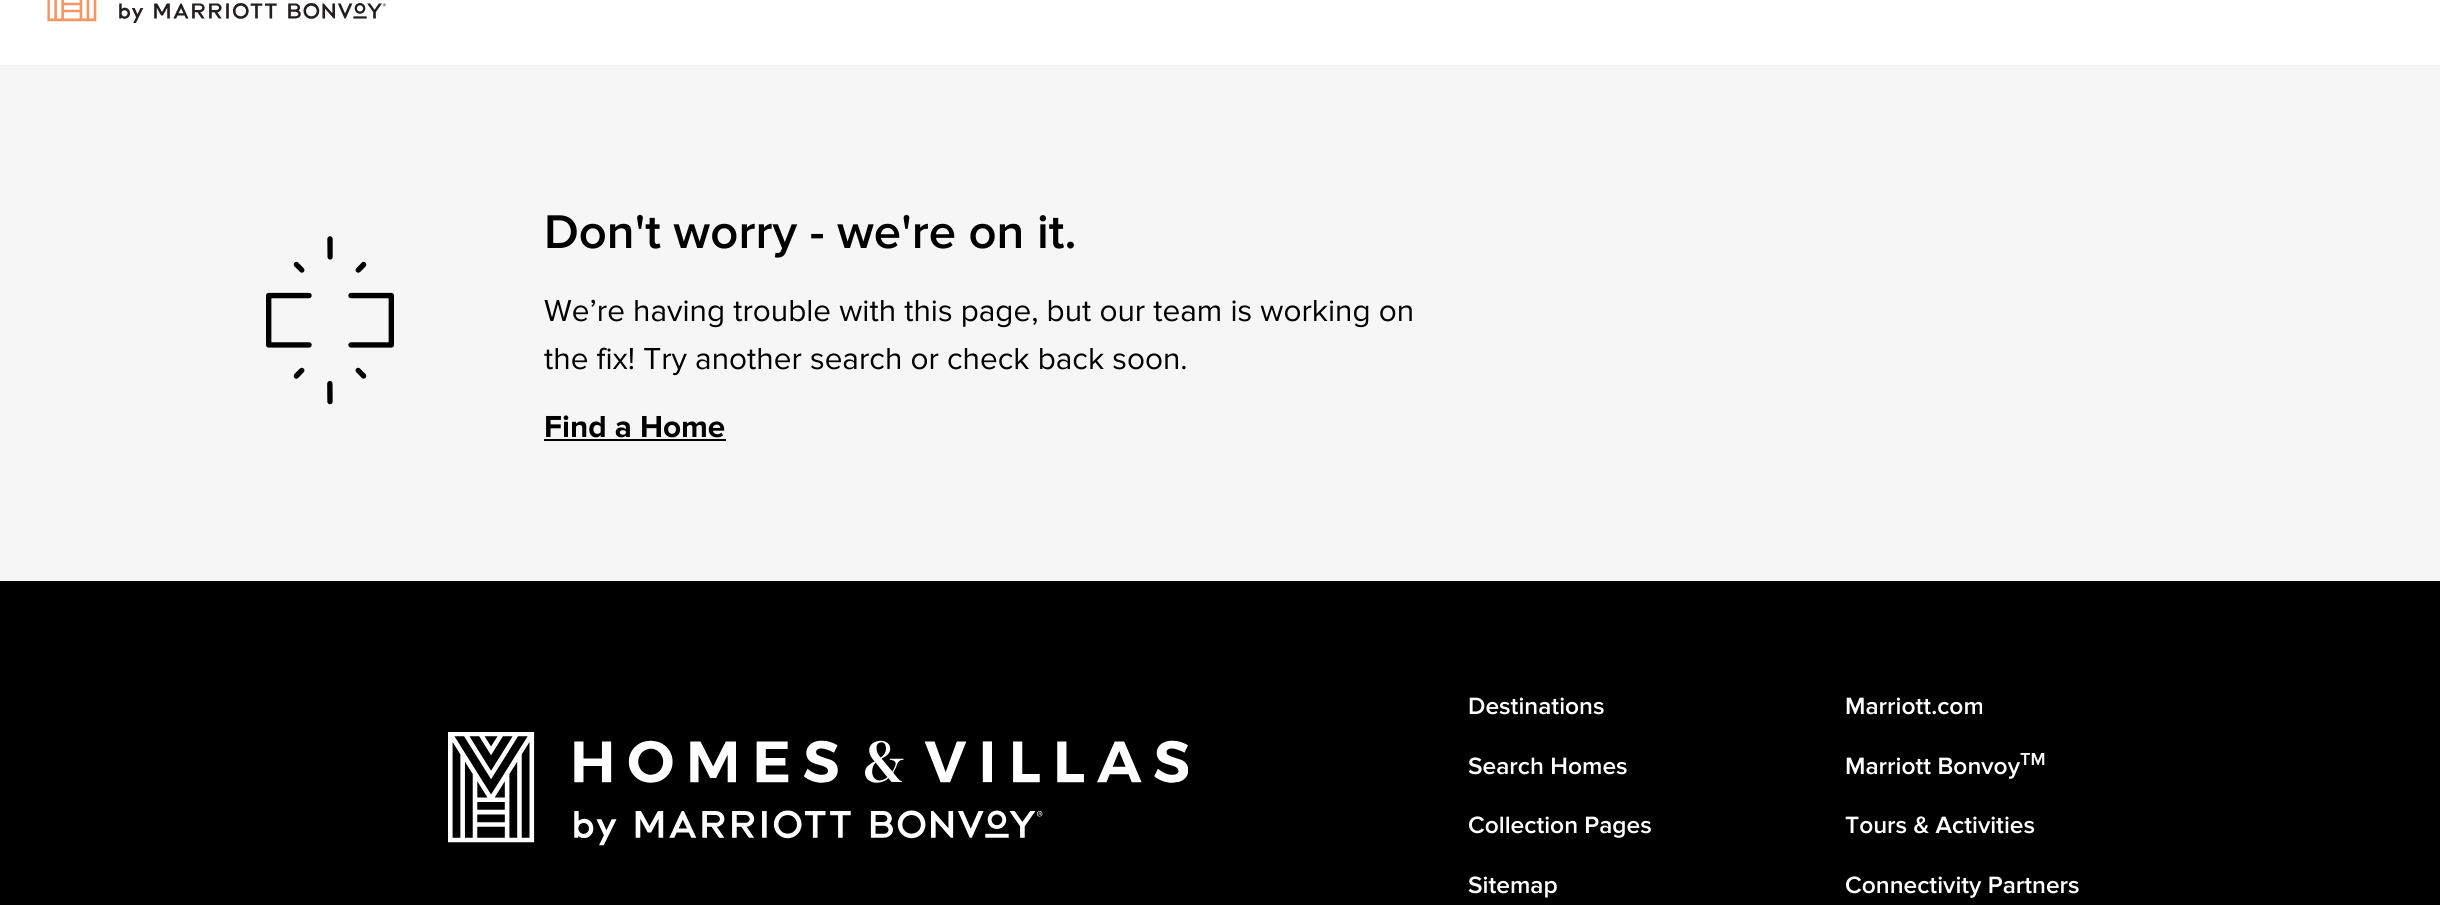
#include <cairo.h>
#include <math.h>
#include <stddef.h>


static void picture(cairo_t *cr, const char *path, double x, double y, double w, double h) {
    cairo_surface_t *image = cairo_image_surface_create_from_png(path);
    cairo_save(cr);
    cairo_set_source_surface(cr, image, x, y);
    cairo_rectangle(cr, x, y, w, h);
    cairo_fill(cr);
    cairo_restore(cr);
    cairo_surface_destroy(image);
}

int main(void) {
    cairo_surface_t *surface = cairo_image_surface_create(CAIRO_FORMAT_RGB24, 2440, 905);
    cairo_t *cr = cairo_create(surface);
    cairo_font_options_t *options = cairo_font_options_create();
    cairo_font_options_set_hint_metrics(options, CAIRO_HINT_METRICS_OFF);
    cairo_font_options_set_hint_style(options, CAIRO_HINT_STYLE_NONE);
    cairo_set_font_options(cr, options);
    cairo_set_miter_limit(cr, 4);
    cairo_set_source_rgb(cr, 1, 1, 1);
    cairo_paint(cr);
    picture(cr, "img1.png", 47, 0, 339, 23);
    cairo_set_source_rgb(cr, 0.961, 0.961, 0.961);
    cairo_rectangle(cr, 0, 65, 2440, 516);
    cairo_fill(cr);
    picture(cr, "img2.png", 266, 236, 128, 169);
    cairo_select_font_face(cr, "Proxima Nova SemiBold", CAIRO_FONT_SLANT_NORMAL, CAIRO_FONT_WEIGHT_NORMAL);
    cairo_set_font_size(cr, 49);
    cairo_set_source_rgb(cr, 0, 0, 0);
    cairo_move_to(cr, 544, 248);
    cairo_show_text(cr, "Don't worry - we're on it.");
    cairo_select_font_face(cr, "Proxima Nova", CAIRO_FONT_SLANT_NORMAL, CAIRO_FONT_WEIGHT_NORMAL);
    cairo_set_font_size(cr, 31.5);
    cairo_move_to(cr, 544, 321);
    cairo_show_text(cr, "We’re having trouble with this page, but our team is working on");
    cairo_move_to(cr, 544, 369);
    cairo_show_text(cr, "the fix! Try another search or check back soon.");
    cairo_select_font_face(cr, "Proxima Nova", CAIRO_FONT_SLANT_NORMAL, CAIRO_FONT_WEIGHT_BOLD);
    cairo_move_to(cr, 544, 437);
    cairo_show_text(cr, "Find a Home");
    cairo_rectangle(cr, 544, 439, 182, 2);
    cairo_fill(cr);
    cairo_rectangle(cr, 0, 581, 2440, 324);
    cairo_fill(cr);
    picture(cr, "img3.png", 448, 732, 740, 114);
    cairo_select_font_face(cr, "Proxima Nova SemiBold", CAIRO_FONT_SLANT_NORMAL, CAIRO_FONT_WEIGHT_NORMAL);
    cairo_set_font_size(cr, 24.5);
    cairo_set_source_rgb(cr, 1, 1, 1);
    cairo_move_to(cr, 1468, 714);
    cairo_show_text(cr, "Destinations");
    cairo_move_to(cr, 1468, 774);
    cairo_show_text(cr, "Search Homes");
    cairo_move_to(cr, 1468, 833);
    cairo_show_text(cr, "Collection Pages");
    cairo_move_to(cr, 1468, 893);
    cairo_show_text(cr, "Sitemap");
    cairo_move_to(cr, 1845, 714);
    cairo_show_text(cr, "Marriott.com");
    cairo_move_to(cr, 1845, 774);
    cairo_show_text(cr, "Marriott Bonvoy");
    cairo_set_font_size(cr, 18);
    cairo_move_to(cr, 2020, 765);
    cairo_show_text(cr, "TM");
    cairo_set_font_size(cr, 24.5);
    cairo_move_to(cr, 1845, 833);
    cairo_show_text(cr, "Tours & Activities");
    cairo_move_to(cr, 1845, 893);
    cairo_show_text(cr, "Connectivity Partners");
    cairo_surface_write_to_png(surface, "page.png");
    cairo_font_options_destroy(options);
    cairo_destroy(cr);
    cairo_surface_destroy(surface);
    return 0;
}
